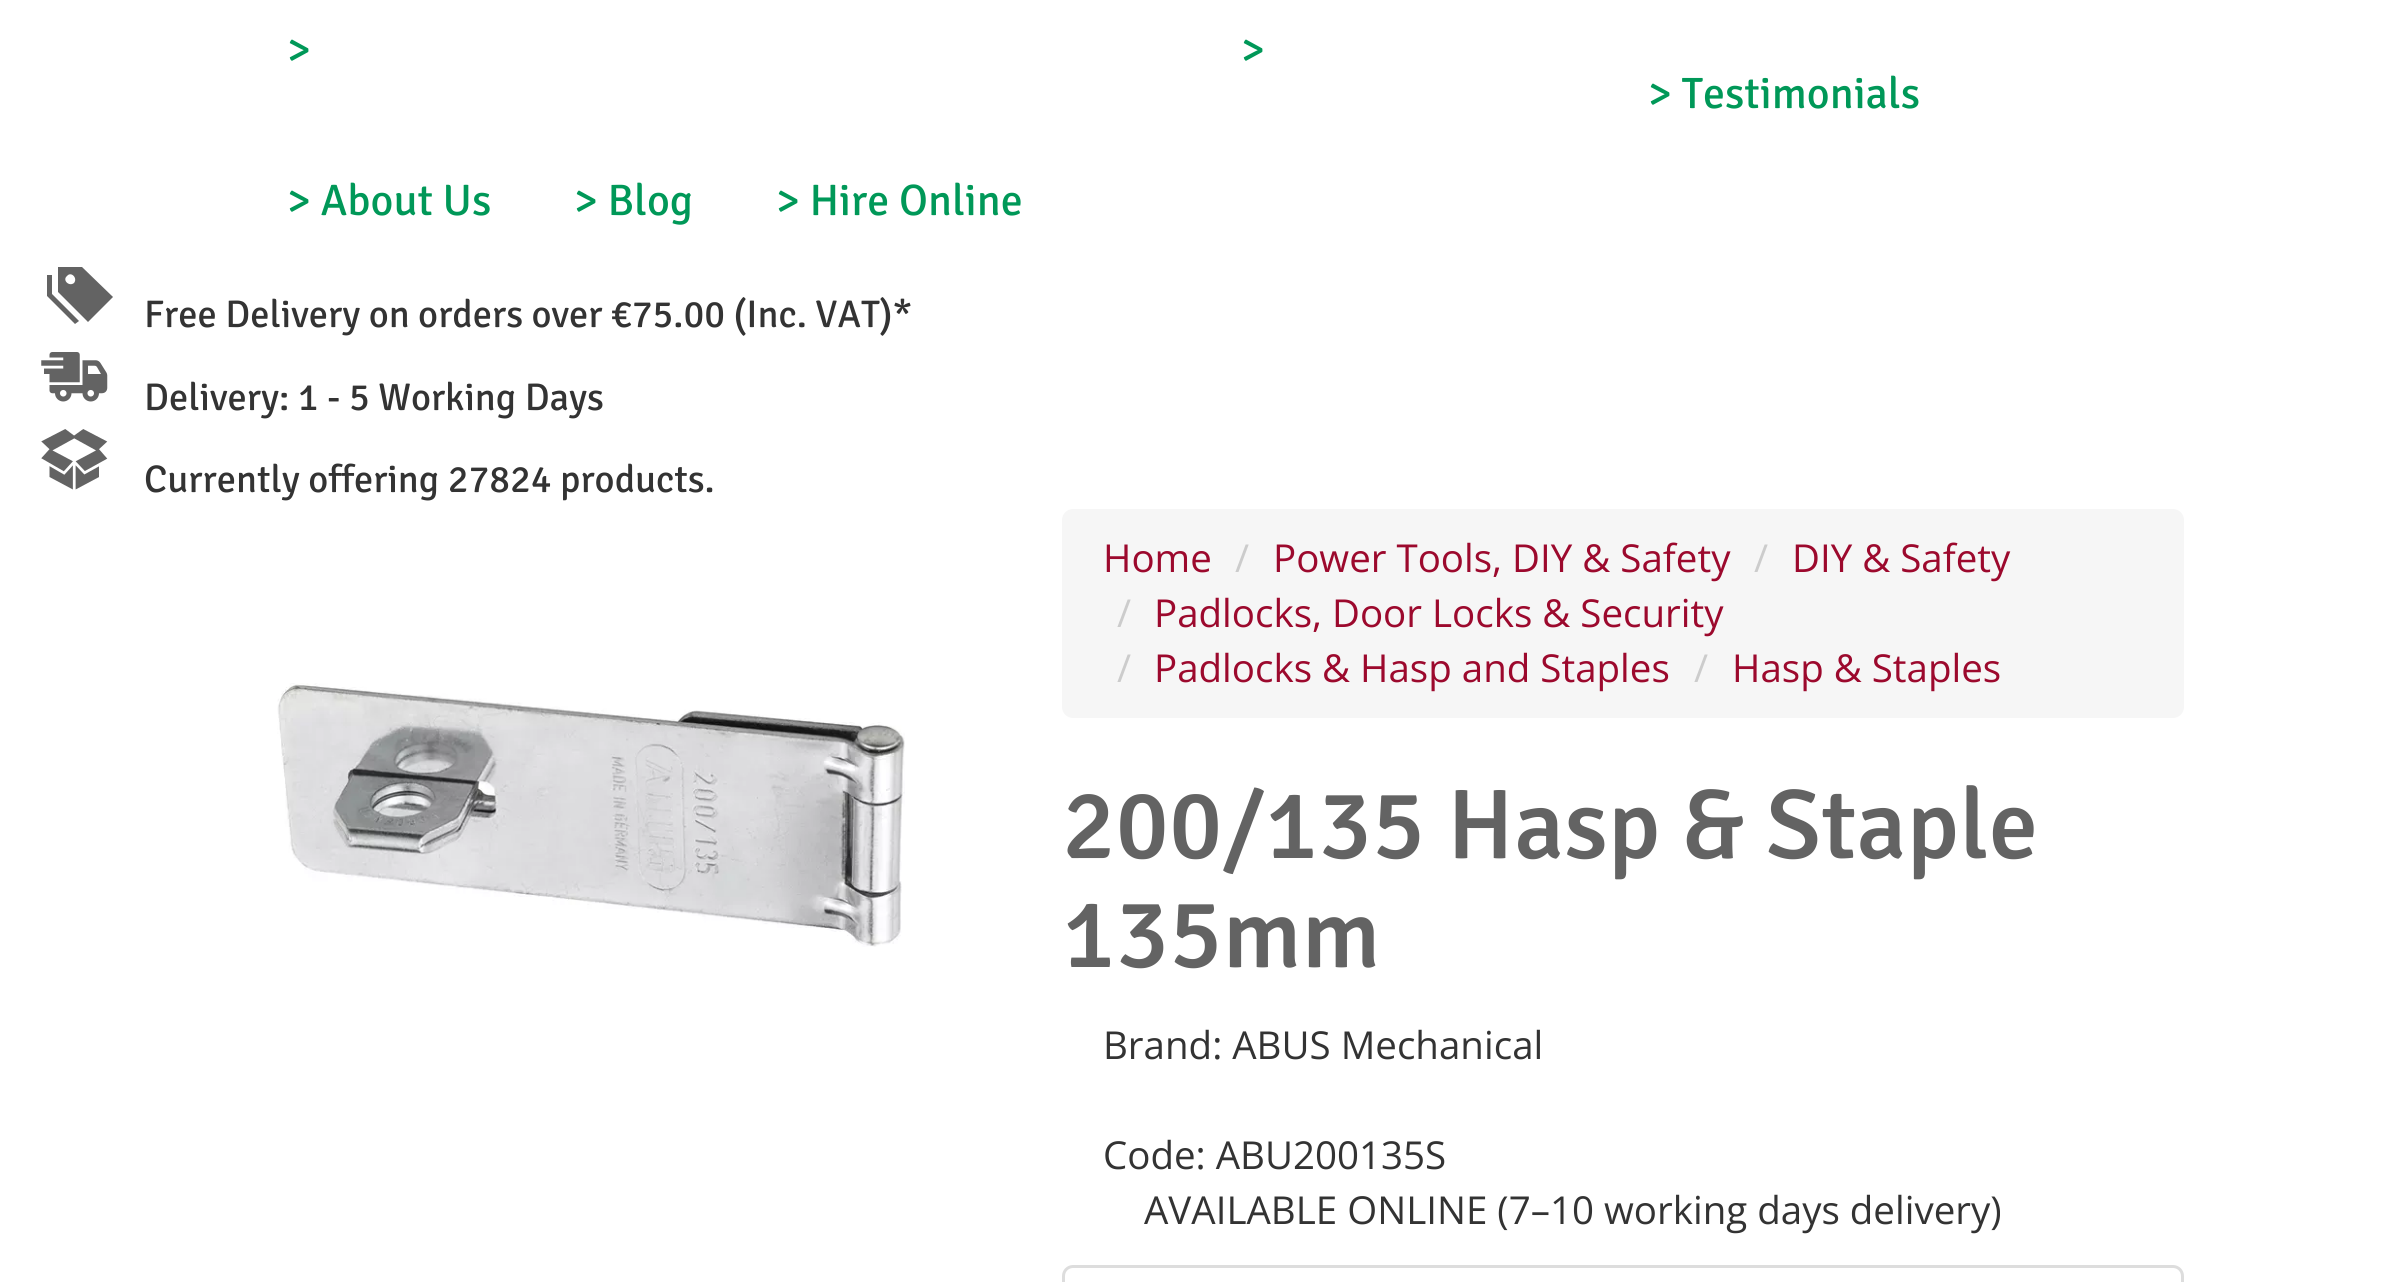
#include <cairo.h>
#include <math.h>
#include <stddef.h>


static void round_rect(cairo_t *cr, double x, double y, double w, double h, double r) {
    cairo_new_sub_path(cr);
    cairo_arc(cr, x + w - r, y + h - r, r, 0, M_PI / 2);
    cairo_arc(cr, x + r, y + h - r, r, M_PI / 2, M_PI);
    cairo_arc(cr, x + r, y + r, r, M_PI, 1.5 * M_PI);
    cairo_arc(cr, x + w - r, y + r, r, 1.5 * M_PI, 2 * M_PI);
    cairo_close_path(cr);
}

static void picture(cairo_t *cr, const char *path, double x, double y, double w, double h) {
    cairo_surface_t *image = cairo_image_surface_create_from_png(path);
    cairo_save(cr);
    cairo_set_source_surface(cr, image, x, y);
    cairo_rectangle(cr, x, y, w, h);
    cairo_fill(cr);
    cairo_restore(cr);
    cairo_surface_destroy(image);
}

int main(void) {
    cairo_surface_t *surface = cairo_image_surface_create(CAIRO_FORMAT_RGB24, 2384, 1282);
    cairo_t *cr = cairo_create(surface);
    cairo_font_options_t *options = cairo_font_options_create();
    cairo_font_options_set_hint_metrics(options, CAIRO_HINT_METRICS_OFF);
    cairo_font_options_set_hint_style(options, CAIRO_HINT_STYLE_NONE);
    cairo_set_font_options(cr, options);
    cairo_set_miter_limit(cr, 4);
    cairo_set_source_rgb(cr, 1, 1, 1);
    cairo_paint(cr);
    cairo_select_font_face(cr, "Signika", CAIRO_FONT_SLANT_NORMAL, CAIRO_FONT_WEIGHT_NORMAL);
    cairo_set_font_size(cr, 44);
    cairo_set_source_rgb(cr, 0, 0.596, 0.345);
    cairo_move_to(cr, 287, 64);
    cairo_show_text(cr, ">");
    cairo_move_to(cr, 1241, 64);
    cairo_show_text(cr, ">");
    cairo_move_to(cr, 1648, 108);
    cairo_show_text(cr, "> Testimonials");
    cairo_move_to(cr, 287, 215);
    cairo_show_text(cr, "> About Us");
    cairo_move_to(cr, 574, 215);
    cairo_show_text(cr, "> Blog");
    cairo_move_to(cr, 776, 215);
    cairo_show_text(cr, "> Hire Online");
    cairo_set_source_rgb(cr, 0.388, 0.388, 0.388);
    cairo_new_path(cr);
    cairo_move_to(cr, 82, 267);
    cairo_line_to(cr, 58, 267);
    cairo_line_to(cr, 58, 292);
    cairo_line_to(cr, 88, 322);
    cairo_line_to(cr, 113, 297);
    cairo_close_path(cr);
    cairo_move_to(cr, 74, 283);
    cairo_curve_to(cr, 69, 287, 62, 280, 67, 276);
    cairo_curve_to(cr, 71, 271, 78, 278, 74, 283);
    cairo_close_path(cr);
    cairo_move_to(cr, 79, 321);
    cairo_line_to(cr, 75, 324);
    cairo_line_to(cr, 47, 296);
    cairo_line_to(cr, 47, 275);
    cairo_line_to(cr, 52, 275);
    cairo_line_to(cr, 52, 294);
    cairo_close_path(cr);
    cairo_fill(cr);
    cairo_set_font_size(cr, 38.5);
    cairo_set_source_rgb(cr, 0.2, 0.2, 0.2);
    cairo_move_to(cr, 144, 327);
    cairo_show_text(cr, "Free Delivery on orders over €75.00 (Inc. VAT)*");
    picture(cr, "img1.png", 41, 352, 67, 50);
    cairo_move_to(cr, 144, 410);
    cairo_show_text(cr, "Delivery: 1 - 5 Working Days");
    picture(cr, "img2.png", 41, 429, 67, 61);
    cairo_move_to(cr, 144, 492);
    cairo_show_text(cr, "Currently offering 27824 products.");
    picture(cr, "img3.png", 277, 683, 628, 264);
    cairo_set_source_rgb(cr, 0.961, 0.961, 0.961);
    round_rect(cr, 1062, 509, 1122, 209, 11);
    cairo_fill(cr);
    cairo_select_font_face(cr, "Open Sans", CAIRO_FONT_SLANT_NORMAL, CAIRO_FONT_WEIGHT_NORMAL);
    cairo_set_source_rgb(cr, 0.612, 0.039, 0.176);
    cairo_move_to(cr, 1103, 572);
    cairo_show_text(cr, "Home");
    cairo_set_source_rgb(cr, 0.8, 0.8, 0.8);
    cairo_move_to(cr, 1235, 572);
    cairo_show_text(cr, "/");
    cairo_set_source_rgb(cr, 0.612, 0.039, 0.176);
    cairo_move_to(cr, 1273, 572);
    cairo_show_text(cr, "Power Tools, DIY & Safety");
    cairo_set_source_rgb(cr, 0.8, 0.8, 0.8);
    cairo_move_to(cr, 1754, 572);
    cairo_show_text(cr, "/");
    cairo_set_source_rgb(cr, 0.612, 0.039, 0.176);
    cairo_move_to(cr, 1792, 572);
    cairo_show_text(cr, "DIY & Safety");
    cairo_set_source_rgb(cr, 0.8, 0.8, 0.8);
    cairo_move_to(cr, 1117, 627);
    cairo_show_text(cr, "/");
    cairo_set_source_rgb(cr, 0.612, 0.039, 0.176);
    cairo_move_to(cr, 1154, 627);
    cairo_show_text(cr, "Padlocks, Door Locks & Security");
    cairo_set_source_rgb(cr, 0.8, 0.8, 0.8);
    cairo_move_to(cr, 1117, 682);
    cairo_show_text(cr, "/");
    cairo_set_source_rgb(cr, 0.612, 0.039, 0.176);
    cairo_move_to(cr, 1154, 682);
    cairo_show_text(cr, "Padlocks & Hasp and Staples");
    cairo_set_source_rgb(cr, 0.8, 0.8, 0.8);
    cairo_move_to(cr, 1694, 682);
    cairo_show_text(cr, "/");
    cairo_set_source_rgb(cr, 0.612, 0.039, 0.176);
    cairo_move_to(cr, 1732, 682);
    cairo_show_text(cr, "Hasp & Staples");
    cairo_select_font_face(cr, "Signika Medium", CAIRO_FONT_SLANT_NORMAL, CAIRO_FONT_WEIGHT_NORMAL);
    cairo_set_font_size(cr, 99);
    cairo_set_source_rgb(cr, 0.388, 0.388, 0.388);
    cairo_move_to(cr, 1062, 858);
    cairo_show_text(cr, "200/135 Hasp & Staple");
    cairo_move_to(cr, 1062, 967);
    cairo_show_text(cr, "135mm");
    cairo_select_font_face(cr, "Open Sans", CAIRO_FONT_SLANT_NORMAL, CAIRO_FONT_WEIGHT_NORMAL);
    cairo_set_font_size(cr, 38.5);
    cairo_set_source_rgb(cr, 0.2, 0.2, 0.2);
    cairo_move_to(cr, 1103, 1059);
    cairo_show_text(cr, "Brand: ABUS Mechanical");
    cairo_move_to(cr, 1103, 1169);
    cairo_show_text(cr, "Code: ABU200135S");
    cairo_move_to(cr, 1144, 1224);
    cairo_show_text(cr, "AVAILABLE ONLINE (7–10 working days delivery)");
    round_rect(cr, 1063.5, 1266.5, 1119, 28, 9.5);
    cairo_set_source_rgb(cr, 0.867, 0.867, 0.867);
    cairo_set_line_width(cr, 3);
    cairo_stroke(cr);
    cairo_surface_write_to_png(surface, "page.png");
    cairo_font_options_destroy(options);
    cairo_destroy(cr);
    cairo_surface_destroy(surface);
    return 0;
}
